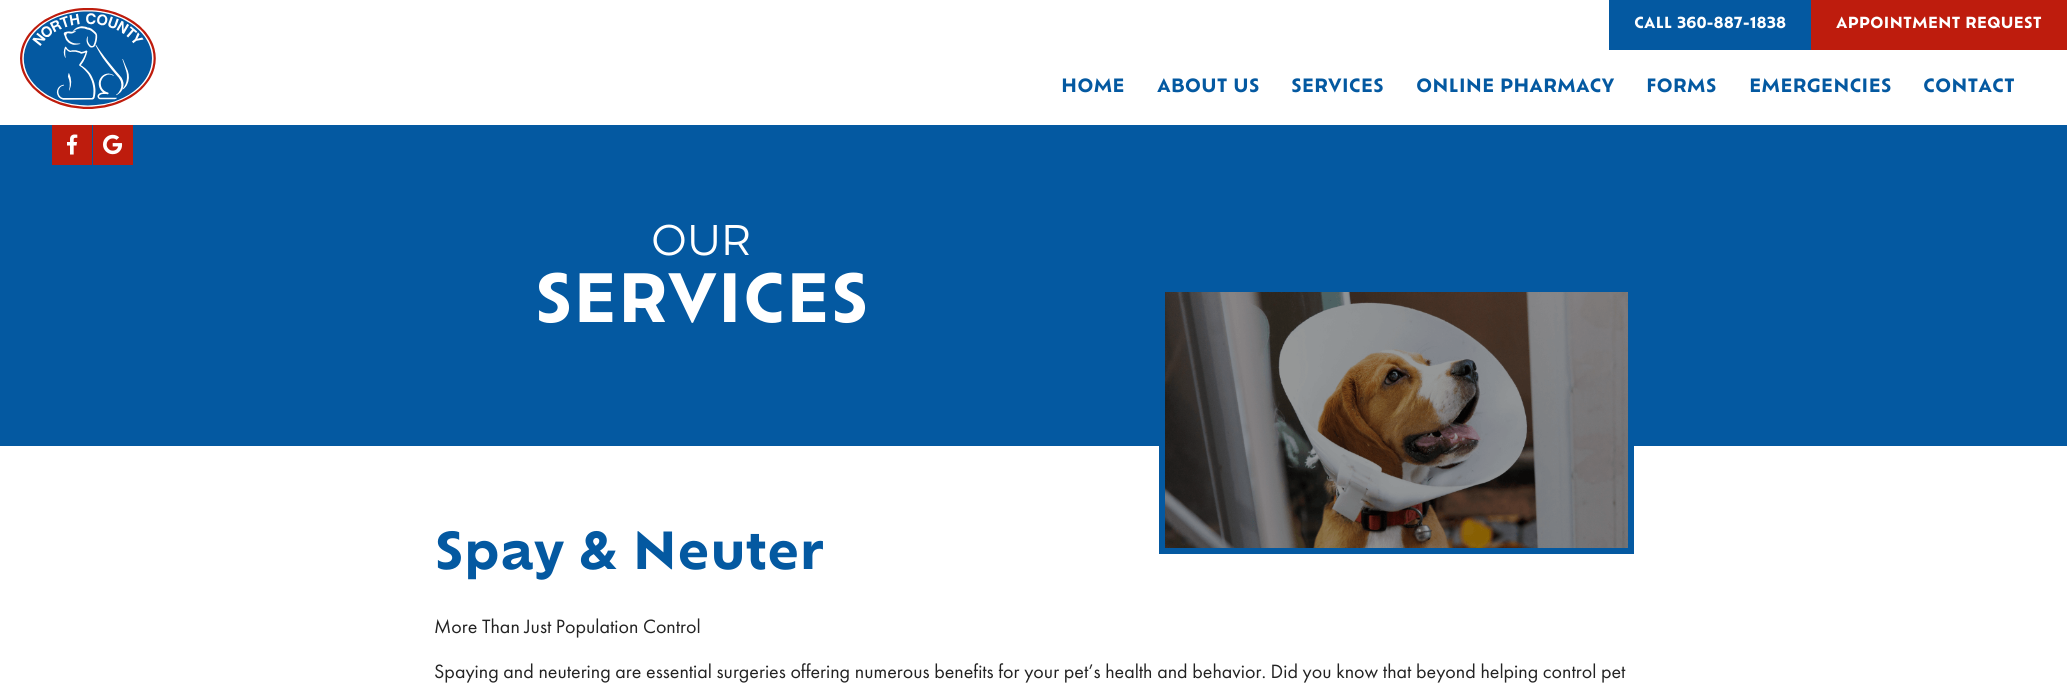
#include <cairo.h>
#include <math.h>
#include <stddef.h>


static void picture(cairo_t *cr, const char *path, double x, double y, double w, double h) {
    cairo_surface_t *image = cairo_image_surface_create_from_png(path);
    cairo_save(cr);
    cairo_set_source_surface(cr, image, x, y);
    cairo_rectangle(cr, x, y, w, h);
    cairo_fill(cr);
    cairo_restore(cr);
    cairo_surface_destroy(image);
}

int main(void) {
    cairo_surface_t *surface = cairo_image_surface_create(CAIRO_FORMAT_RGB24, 2067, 692);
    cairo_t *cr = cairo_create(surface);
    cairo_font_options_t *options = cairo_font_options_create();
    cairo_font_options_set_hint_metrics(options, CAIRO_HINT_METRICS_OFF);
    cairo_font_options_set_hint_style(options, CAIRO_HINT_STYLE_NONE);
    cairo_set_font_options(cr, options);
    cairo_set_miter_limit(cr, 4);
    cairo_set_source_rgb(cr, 1, 1, 1);
    cairo_paint(cr);
    picture(cr, "img1.png", 20, 8, 136, 101);
    cairo_set_source_rgb(cr, 0.016, 0.349, 0.631);
    cairo_rectangle(cr, 1609, 0, 202, 50);
    cairo_fill(cr);
    cairo_select_font_face(cr, "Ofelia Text", CAIRO_FONT_SLANT_NORMAL, CAIRO_FONT_WEIGHT_BOLD);
    cairo_set_font_size(cr, 15);
    cairo_set_source_rgb(cr, 1, 1, 1);
    cairo_move_to(cr, 1634, 28);
    cairo_show_text(cr, "CALL 360-887-1838");
    cairo_set_source_rgb(cr, 0.745, 0.11, 0.051);
    cairo_rectangle(cr, 1811, 0, 256, 50);
    cairo_fill(cr);
    cairo_set_source_rgb(cr, 1, 1, 1);
    cairo_move_to(cr, 1836, 28);
    cairo_show_text(cr, "APPOINTMENT REQUEST");
    cairo_set_font_size(cr, 18);
    cairo_set_source_rgb(cr, 0.016, 0.349, 0.631);
    cairo_move_to(cr, 1061, 92);
    cairo_show_text(cr, "HOME");
    cairo_move_to(cr, 1157, 92);
    cairo_show_text(cr, "ABOUT US");
    cairo_move_to(cr, 1291, 92);
    cairo_show_text(cr, "SERVICES");
    cairo_move_to(cr, 1416, 92);
    cairo_show_text(cr, "ONLINE PHARMACY");
    cairo_move_to(cr, 1646, 92);
    cairo_show_text(cr, "FORMS");
    cairo_move_to(cr, 1749, 92);
    cairo_show_text(cr, "EMERGENCIES");
    cairo_move_to(cr, 1923, 92);
    cairo_show_text(cr, "CONTACT");
    cairo_rectangle(cr, 0, 125, 2067, 321);
    cairo_fill(cr);
    cairo_set_source_rgb(cr, 0.745, 0.11, 0.051);
    cairo_rectangle(cr, 52, 125, 40, 40);
    cairo_fill(cr);
    picture(cr, "img2.png", 67, 134, 11, 21);
    cairo_rectangle(cr, 93, 125, 40, 40);
    cairo_fill(cr);
    picture(cr, "img3.png", 103, 134, 20, 21);
    cairo_select_font_face(cr, "Ofelia Text", CAIRO_FONT_SLANT_NORMAL, CAIRO_FONT_WEIGHT_NORMAL);
    cairo_set_font_size(cr, 40);
    cairo_set_source_rgb(cr, 1, 1, 1);
    cairo_move_to(cr, 651, 255);
    cairo_show_text(cr, "OUR");
    cairo_select_font_face(cr, "Ofelia Text", CAIRO_FONT_SLANT_NORMAL, CAIRO_FONT_WEIGHT_BOLD);
    cairo_set_font_size(cr, 65);
    cairo_move_to(cr, 534, 322);
    cairo_show_text(cr, "SERVICES");
    cairo_set_font_size(cr, 50);
    cairo_set_source_rgb(cr, 0.016, 0.349, 0.631);
    cairo_move_to(cr, 434, 569);
    cairo_show_text(cr, "Spay & Neuter");
    cairo_rectangle(cr, 1162, 289, 469, 262);
    cairo_set_line_width(cr, 6);
    cairo_stroke(cr);
    picture(cr, "img4.png", 1165, 292, 463, 256);
    cairo_select_font_face(cr, "Futura PT", CAIRO_FONT_SLANT_NORMAL, CAIRO_FONT_WEIGHT_NORMAL);
    cairo_set_font_size(cr, 20);
    cairo_set_source_rgb(cr, 0.137, 0.137, 0.137);
    cairo_move_to(cr, 434, 633);
    cairo_show_text(cr, "More Than Just Population Control");
    cairo_move_to(cr, 434, 678);
    cairo_show_text(cr, "Spaying and neutering are essential surgeries offering numerous benefits for your pet’s health and behavior. Did you know that beyond helping control pet");
    cairo_surface_write_to_png(surface, "page.png");
    cairo_font_options_destroy(options);
    cairo_destroy(cr);
    cairo_surface_destroy(surface);
    return 0;
}
